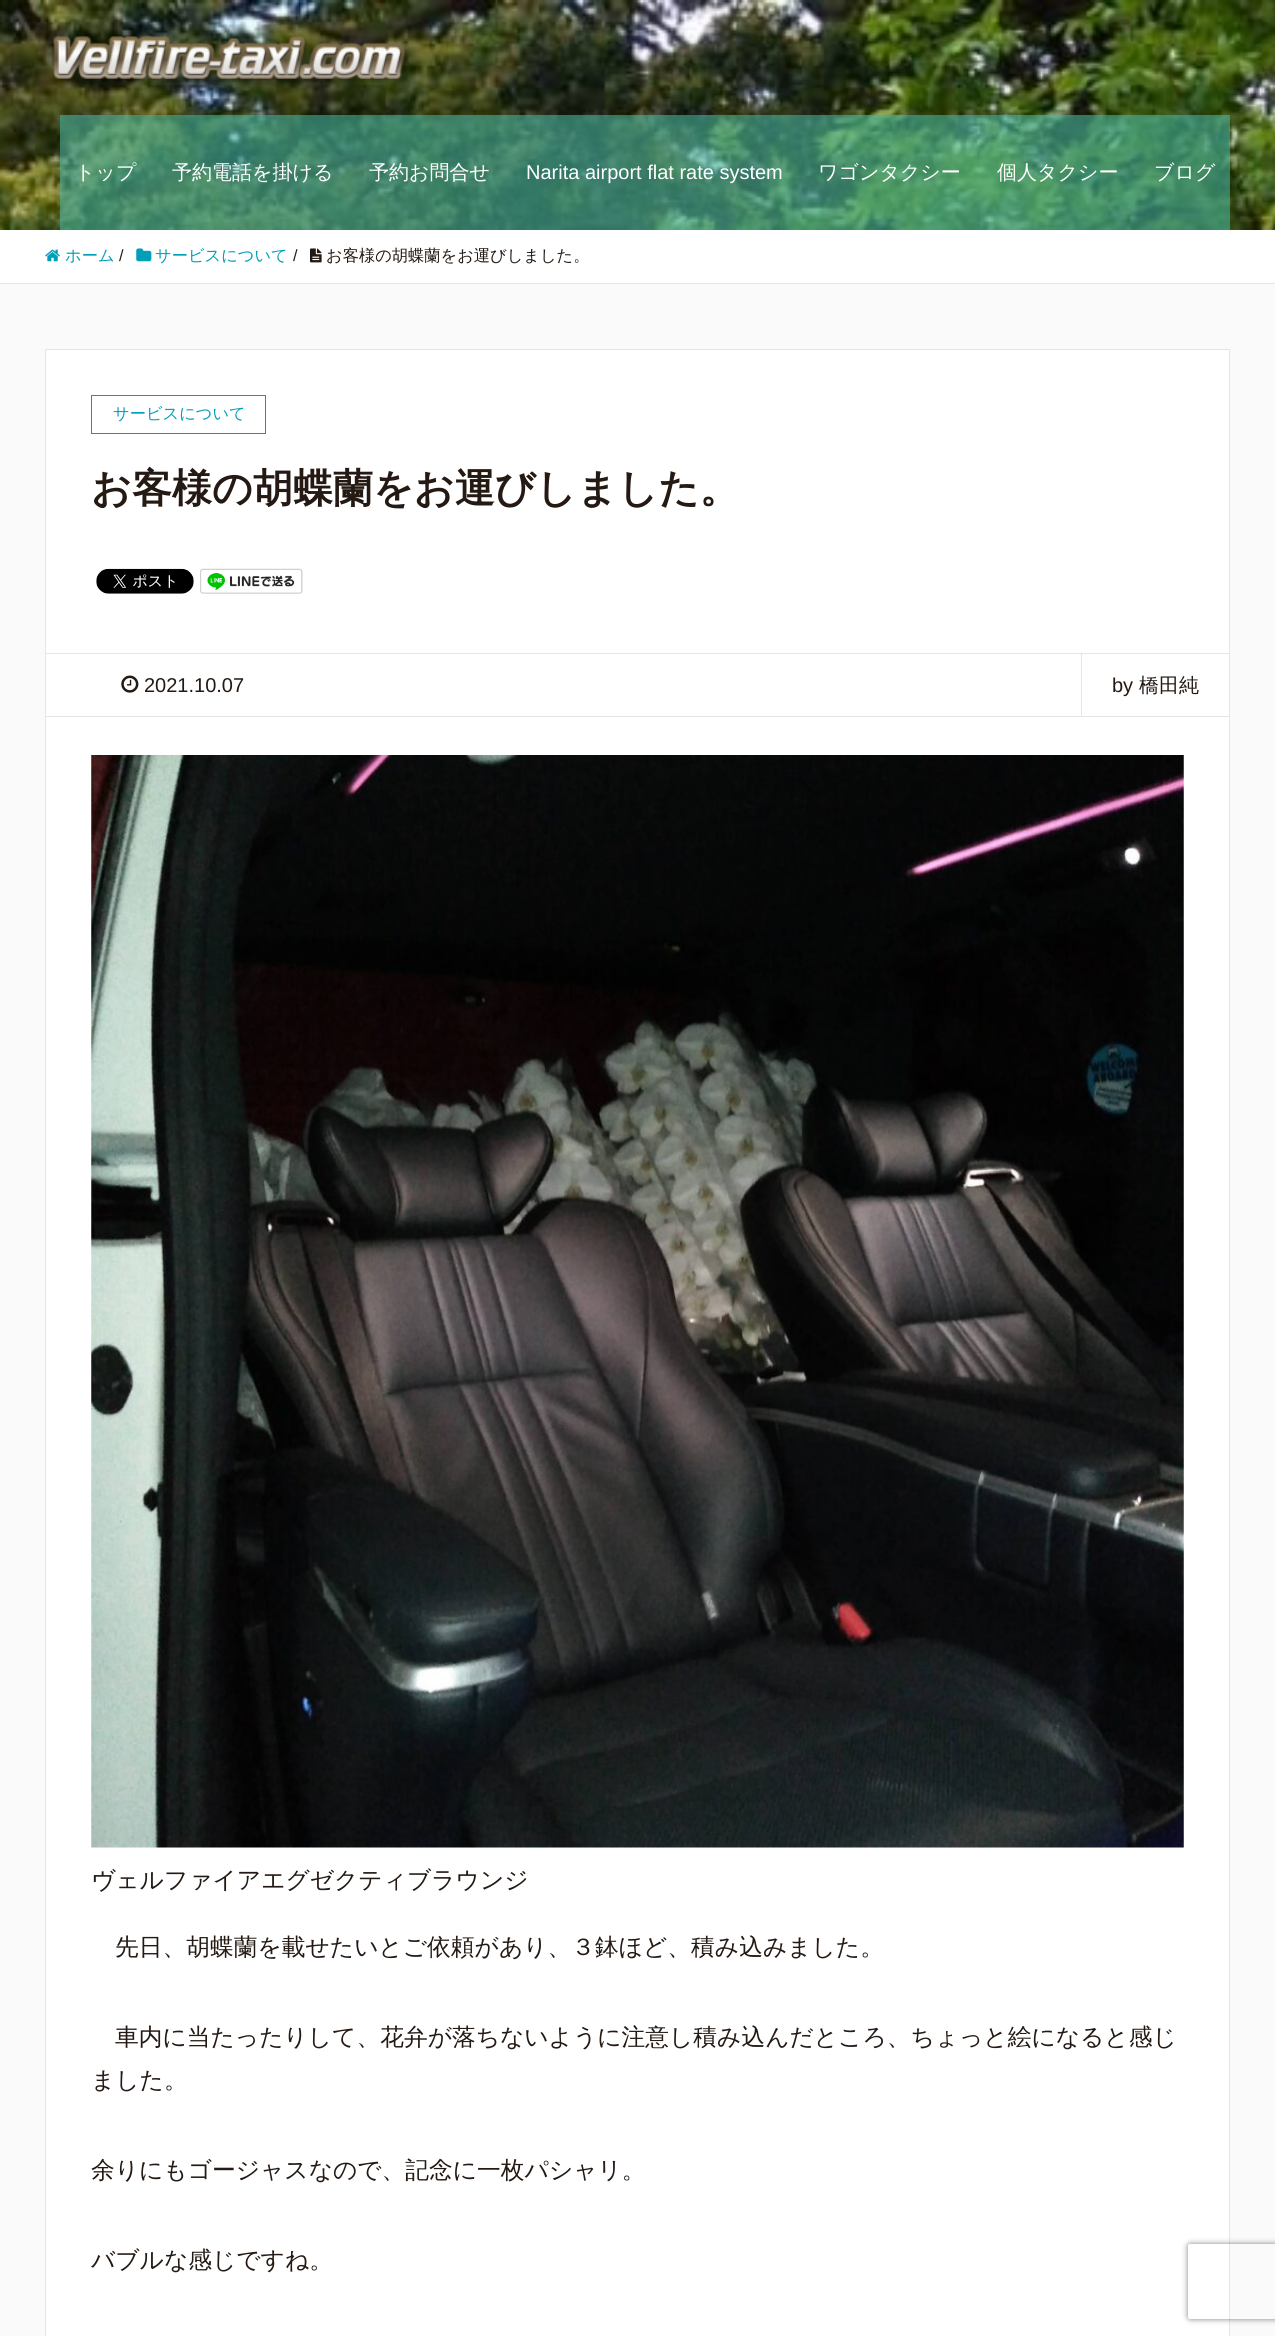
#include <cairo.h>
#include <math.h>
#include <stddef.h>


static void round_rect(cairo_t *cr, double x, double y, double w, double h, double r) {
    cairo_new_sub_path(cr);
    cairo_arc(cr, x + w - r, y + h - r, r, 0, M_PI / 2);
    cairo_arc(cr, x + r, y + h - r, r, M_PI / 2, M_PI);
    cairo_arc(cr, x + r, y + r, r, M_PI, 1.5 * M_PI);
    cairo_arc(cr, x + w - r, y + r, r, 1.5 * M_PI, 2 * M_PI);
    cairo_close_path(cr);
}

static void shadow(cairo_t *cr, double x, double y, double w, double h, double r, double blur, double alpha) {
    cairo_push_group_with_content(cr, CAIRO_CONTENT_ALPHA);
    cairo_set_operator(cr, CAIRO_OPERATOR_SOURCE);
    for (int i = 15; i >= -15 && fmin(w, h) + blur * i / 3 > 0; i -= 2) {
        double e = blur * i / 6;
        cairo_set_source_rgba(cr, 0, 0, 0, alpha * erfc((i - 1) / 8.5) / 2);
        round_rect(cr, x - e, y - e, w + 2 * e, h + 2 * e, fmax(0, fmin(r + e + blur * .6, fmin(w, h) / 2 + e)));
        cairo_fill(cr);
    }
    cairo_pattern_t *soft = cairo_pop_group(cr);
    cairo_mask(cr, soft);
    cairo_pattern_destroy(soft);
}

static void picture(cairo_t *cr, const char *path, double x, double y, double w, double h) {
    cairo_surface_t *image = cairo_image_surface_create_from_png(path);
    cairo_save(cr);
    cairo_set_source_surface(cr, image, x, y);
    cairo_rectangle(cr, x, y, w, h);
    cairo_fill(cr);
    cairo_restore(cr);
    cairo_surface_destroy(image);
}

int main(void) {
    cairo_surface_t *surface = cairo_image_surface_create(CAIRO_FORMAT_RGB24, 1275, 2336);
    cairo_t *cr = cairo_create(surface);
    cairo_font_options_t *options = cairo_font_options_create();
    cairo_font_options_set_hint_metrics(options, CAIRO_HINT_METRICS_OFF);
    cairo_font_options_set_hint_style(options, CAIRO_HINT_STYLE_NONE);
    cairo_set_font_options(cr, options);
    cairo_set_miter_limit(cr, 4);
    cairo_set_source_rgb(cr, 1, 1, 1);
    cairo_paint(cr);
    picture(cr, "img1.png", 0, 0, 1275, 230);
    picture(cr, "img2.png", 52, 36, 358, 47);
    cairo_set_source_rgba(cr, 0.278, 0.702, 0.616, 0.6);
    cairo_rectangle(cr, 60, 115, 1170, 115);
    cairo_fill(cr);
    cairo_select_font_face(cr, "WenQuanYi Zen Hei Medium", CAIRO_FONT_SLANT_NORMAL, CAIRO_FONT_WEIGHT_NORMAL);
    cairo_set_font_size(cr, 20);
    cairo_set_source_rgb(cr, 1, 1, 1);
    cairo_move_to(cr, 75, 179);
    cairo_show_text(cr, "トップ");
    cairo_move_to(cr, 172, 179);
    cairo_show_text(cr, "予約電話を掛ける");
    cairo_move_to(cr, 369, 179);
    cairo_show_text(cr, "予約お問合せ");
    cairo_select_font_face(cr, "Liberation Sans", CAIRO_FONT_SLANT_NORMAL, CAIRO_FONT_WEIGHT_NORMAL);
    cairo_move_to(cr, 526, 179);
    cairo_show_text(cr, "Narita airport flat rate system");
    cairo_select_font_face(cr, "WenQuanYi Zen Hei Medium", CAIRO_FONT_SLANT_NORMAL, CAIRO_FONT_WEIGHT_NORMAL);
    cairo_move_to(cr, 818, 179);
    cairo_show_text(cr, "ワゴンタクシー");
    cairo_move_to(cr, 997, 179);
    cairo_show_text(cr, "個人タクシー");
    cairo_move_to(cr, 1154, 179);
    cairo_show_text(cr, "ブログ");
    cairo_set_source_rgb(cr, 0.898, 0.898, 0.898);
    cairo_rectangle(cr, 0, 283, 1275, 1);
    cairo_fill(cr);
    picture(cr, "img3.png", 45, 249, 15, 13);
    cairo_set_font_size(cr, 16.25);
    cairo_set_source_rgb(cr, 0, 0.624, 0.718);
    cairo_move_to(cr, 65, 261);
    cairo_show_text(cr, "ホーム");
    cairo_select_font_face(cr, "Liberation Sans", CAIRO_FONT_SLANT_NORMAL, CAIRO_FONT_WEIGHT_NORMAL);
    cairo_set_source_rgb(cr, 0.141, 0.098, 0.075);
    cairo_move_to(cr, 119, 261);
    cairo_show_text(cr, "/");
    picture(cr, "img4.png", 136, 248, 16, 14);
    cairo_select_font_face(cr, "WenQuanYi Zen Hei Medium", CAIRO_FONT_SLANT_NORMAL, CAIRO_FONT_WEIGHT_NORMAL);
    cairo_set_source_rgb(cr, 0, 0.624, 0.718);
    cairo_move_to(cr, 155, 261);
    cairo_show_text(cr, "サービスについて");
    cairo_select_font_face(cr, "Liberation Sans", CAIRO_FONT_SLANT_NORMAL, CAIRO_FONT_WEIGHT_NORMAL);
    cairo_set_source_rgb(cr, 0.141, 0.098, 0.075);
    cairo_move_to(cr, 293, 261);
    cairo_show_text(cr, "/");
    picture(cr, "img5.png", 310, 248, 12, 15);
    cairo_select_font_face(cr, "WenQuanYi Zen Hei Medium", CAIRO_FONT_SLANT_NORMAL, CAIRO_FONT_WEIGHT_NORMAL);
    cairo_move_to(cr, 326, 261);
    cairo_show_text(cr, "お客様の胡蝶蘭をお運びしました。");
    cairo_set_source_rgb(cr, 0.98, 0.98, 0.98);
    cairo_rectangle(cr, 0, 284, 1275, 2052);
    cairo_fill(cr);
    cairo_set_source_rgb(cr, 1, 1, 1);
    cairo_rectangle(cr, 45.5, 349.5, 1184, 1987);
    cairo_fill_preserve(cr);
    cairo_set_source_rgb(cr, 0.898, 0.898, 0.898);
    cairo_set_line_width(cr, 1);
    cairo_stroke(cr);
    cairo_rectangle(cr, 46, 653, 1183, 1);
    cairo_fill(cr);
    cairo_rectangle(cr, 91.5, 395.5, 174, 38);
    cairo_set_source_rgb(cr, 0, 0.624, 0.718);
    cairo_stroke(cr);
    cairo_move_to(cr, 113, 419);
    cairo_show_text(cr, "サービスについて");
    cairo_select_font_face(cr, "WenQuanYi Zen Hei", CAIRO_FONT_SLANT_NORMAL, CAIRO_FONT_WEIGHT_BOLD);
    cairo_set_font_size(cr, 40);
    cairo_set_source_rgb(cr, 0.141, 0.098, 0.075);
    cairo_move_to(cr, 91, 502);
    cairo_show_text(cr, "お客様の胡蝶蘭をお運びしました。");
    picture(cr, "img6.png", 96, 568, 98, 26);
    picture(cr, "img7.png", 200, 568, 103, 26);
    cairo_set_source_rgb(cr, 0.898, 0.898, 0.898);
    cairo_rectangle(cr, 46, 716, 1183, 1);
    cairo_fill(cr);
    picture(cr, "img8.png", 121, 675, 18, 18);
    cairo_select_font_face(cr, "Liberation Sans", CAIRO_FONT_SLANT_NORMAL, CAIRO_FONT_WEIGHT_NORMAL);
    cairo_set_font_size(cr, 20);
    cairo_set_source_rgb(cr, 0.141, 0.098, 0.075);
    cairo_move_to(cr, 144, 692);
    cairo_show_text(cr, "2021.10.07");
    cairo_set_source_rgb(cr, 0.898, 0.898, 0.898);
    cairo_rectangle(cr, 1081, 654, 1, 62);
    cairo_fill(cr);
    cairo_set_source_rgb(cr, 0.141, 0.098, 0.075);
    cairo_move_to(cr, 1112, 692);
    cairo_show_text(cr, "by");
    cairo_select_font_face(cr, "WenQuanYi Zen Hei Medium", CAIRO_FONT_SLANT_NORMAL, CAIRO_FONT_WEIGHT_NORMAL);
    cairo_move_to(cr, 1139, 692);
    cairo_show_text(cr, "橋田純");
    picture(cr, "img9.png", 91, 755, 1093, 1093);
    cairo_set_font_size(cr, 23.75);
    cairo_move_to(cr, 91, 1888);
    cairo_show_text(cr, "ヴェルファイアエグゼクティブラウンジ");
    cairo_move_to(cr, 115, 1955);
    cairo_show_text(cr, "先日、胡蝶蘭を載せたいとご依頼があり、３鉢ほど、積み込みました。");
    cairo_move_to(cr, 115, 2045);
    cairo_show_text(cr, "車内に当たったりして、花弁が落ちないように注意し積み込んだところ、ちょっと絵になると感じ");
    cairo_move_to(cr, 91, 2088);
    cairo_show_text(cr, "ました。");
    cairo_move_to(cr, 91, 2178);
    cairo_show_text(cr, "余りにもゴージャスなので、記念に一枚パシャリ。");
    cairo_move_to(cr, 91, 2268);
    cairo_show_text(cr, "バブルな感じですね。");
    cairo_save(cr);
    cairo_set_fill_rule(cr, CAIRO_FILL_RULE_EVEN_ODD);
    cairo_new_path(cr);
    cairo_move_to(cr, 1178, 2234);
    cairo_line_to(cr, 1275, 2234);
    cairo_line_to(cr, 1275, 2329);
    cairo_line_to(cr, 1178, 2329);
    cairo_close_path(cr);
    cairo_move_to(cr, 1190.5, 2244);
    cairo_line_to(cr, 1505.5, 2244);
    cairo_curve_to(cr, 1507, 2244, 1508, 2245, 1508, 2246.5);
    cairo_line_to(cr, 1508, 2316.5);
    cairo_curve_to(cr, 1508, 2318, 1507, 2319, 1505.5, 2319);
    cairo_line_to(cr, 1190.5, 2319);
    cairo_curve_to(cr, 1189, 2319, 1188, 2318, 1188, 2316.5);
    cairo_line_to(cr, 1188, 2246.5);
    cairo_curve_to(cr, 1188, 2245, 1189, 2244, 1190.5, 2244);
    cairo_close_path(cr);
    cairo_clip(cr);
    cairo_set_source_rgb(cr, 0.502, 0.502, 0.502);
    shadow(cr, 1188, 2244, 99, 75, 2.5, 3, 1);
    cairo_restore(cr);
    cairo_surface_write_to_png(surface, "page.png");
    cairo_font_options_destroy(options);
    cairo_destroy(cr);
    cairo_surface_destroy(surface);
    return 0;
}
